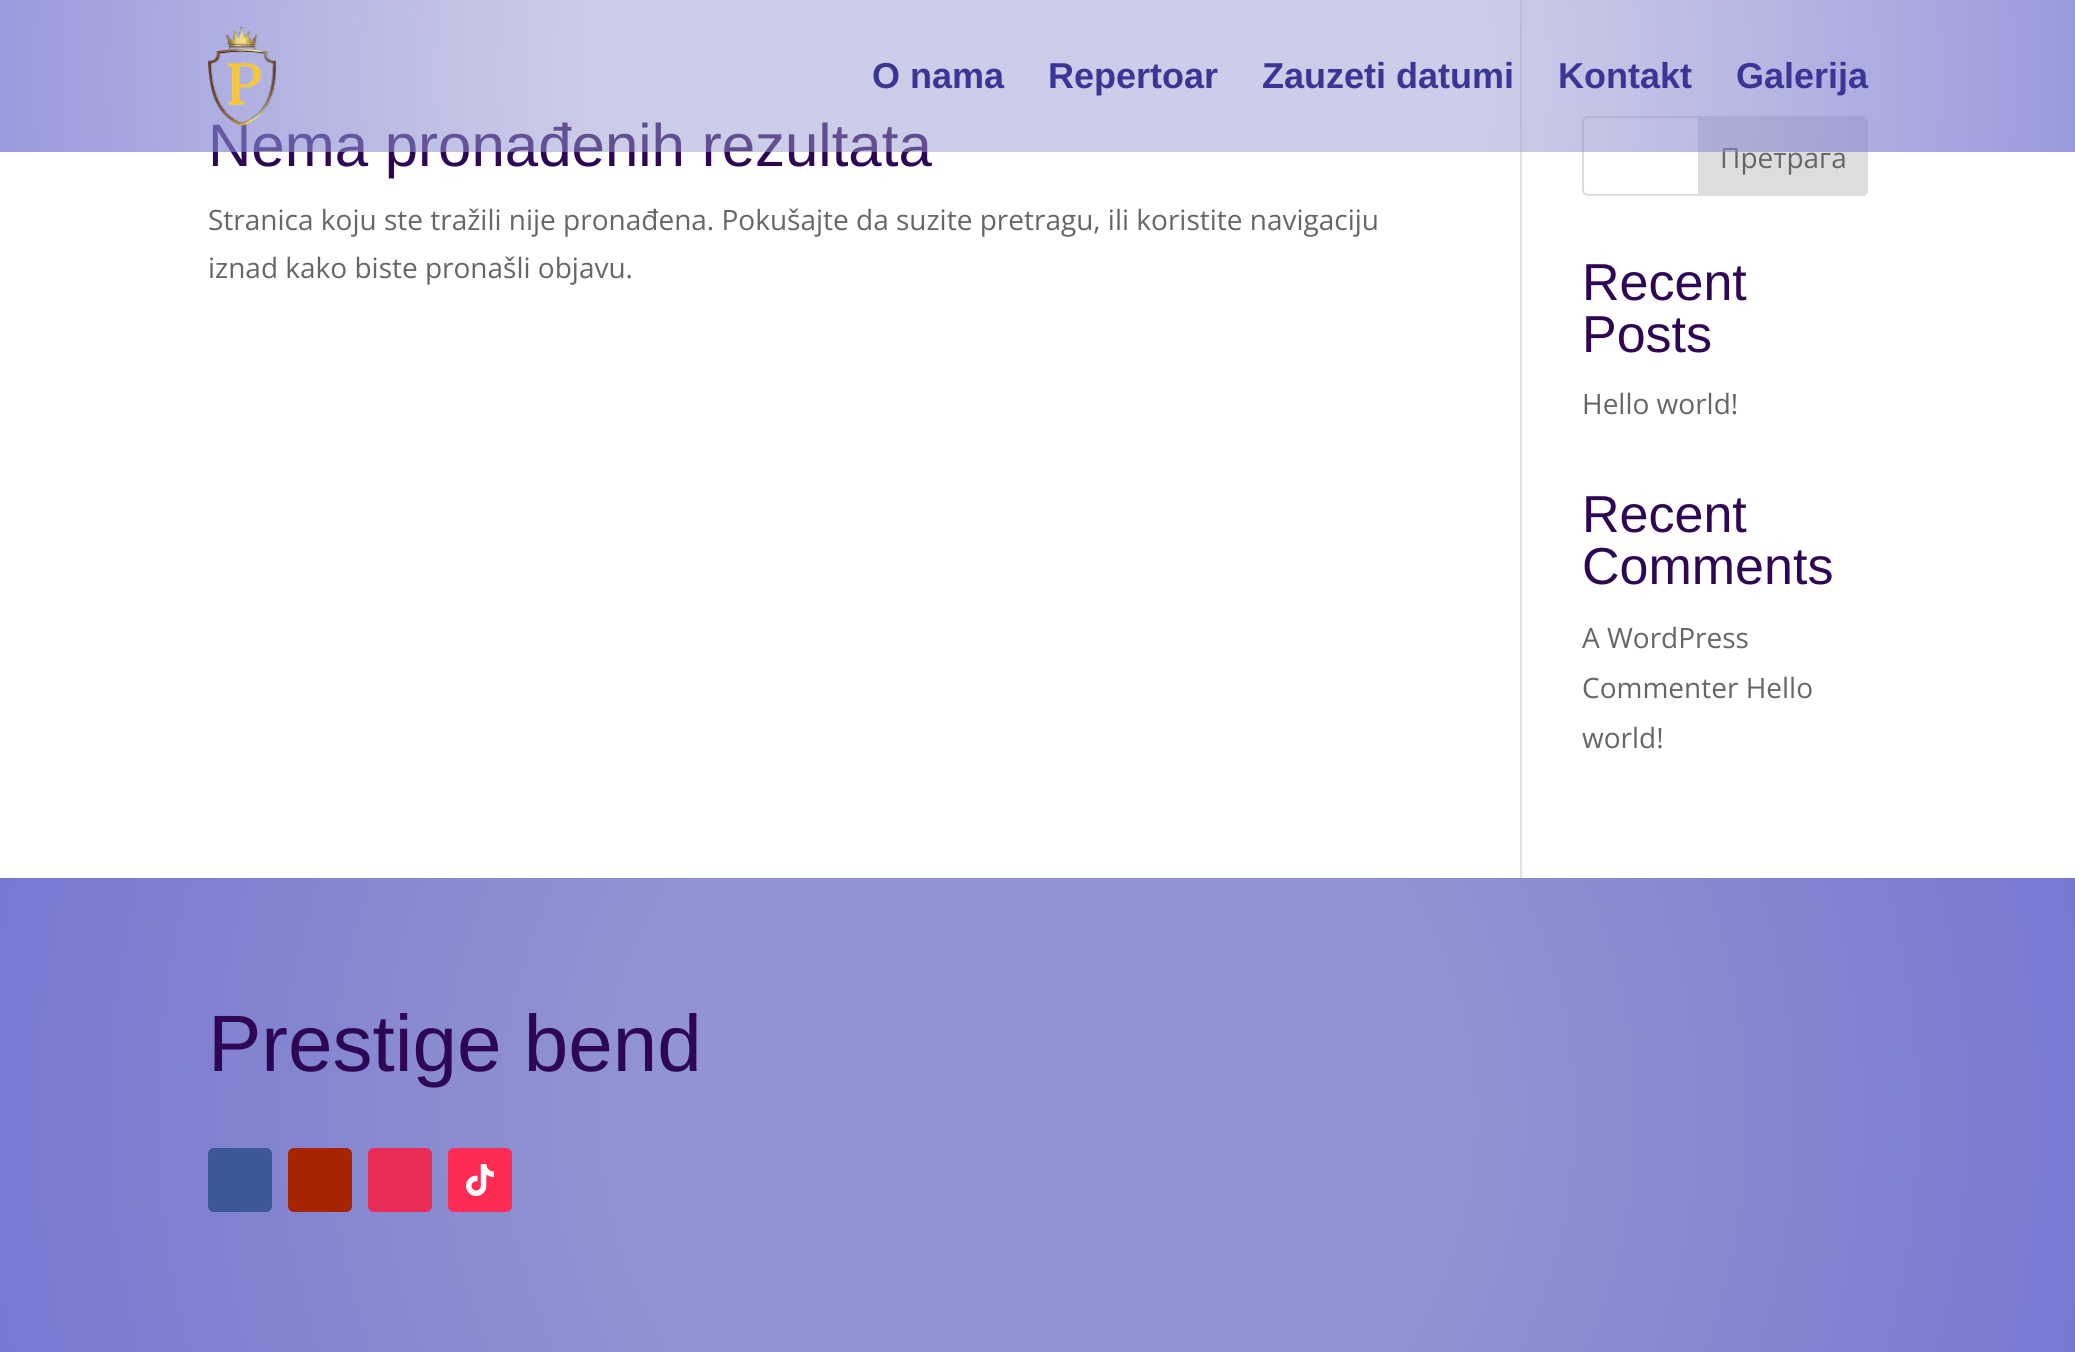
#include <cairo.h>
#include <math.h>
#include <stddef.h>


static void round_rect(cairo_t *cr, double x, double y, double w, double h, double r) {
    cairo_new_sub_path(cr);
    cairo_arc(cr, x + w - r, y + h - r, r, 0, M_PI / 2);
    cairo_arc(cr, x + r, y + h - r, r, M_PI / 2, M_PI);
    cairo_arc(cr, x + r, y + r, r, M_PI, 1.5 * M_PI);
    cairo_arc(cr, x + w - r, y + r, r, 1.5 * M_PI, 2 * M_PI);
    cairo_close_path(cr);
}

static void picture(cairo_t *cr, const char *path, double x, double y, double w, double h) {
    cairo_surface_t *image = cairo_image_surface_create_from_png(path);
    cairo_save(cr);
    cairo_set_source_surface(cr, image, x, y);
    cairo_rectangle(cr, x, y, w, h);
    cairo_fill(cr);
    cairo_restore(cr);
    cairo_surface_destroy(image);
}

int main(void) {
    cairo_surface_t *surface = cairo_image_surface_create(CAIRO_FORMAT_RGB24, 2075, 1352);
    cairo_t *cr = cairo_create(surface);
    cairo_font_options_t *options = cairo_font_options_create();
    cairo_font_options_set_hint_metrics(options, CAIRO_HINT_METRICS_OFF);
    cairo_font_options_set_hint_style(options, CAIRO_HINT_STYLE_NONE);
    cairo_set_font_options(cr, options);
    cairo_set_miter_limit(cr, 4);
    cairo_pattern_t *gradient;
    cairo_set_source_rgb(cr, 1, 1, 1);
    cairo_paint(cr);
    cairo_set_source_rgb(cr, 0.886, 0.886, 0.886);
    cairo_rectangle(cr, 1520, 0, 2, 878);
    cairo_fill(cr);
    cairo_select_font_face(cr, "Liberation Sans", CAIRO_FONT_SLANT_NORMAL, CAIRO_FONT_WEIGHT_NORMAL);
    cairo_set_font_size(cr, 60);
    cairo_set_source_rgb(cr, 0.18, 0.031, 0.329);
    cairo_move_to(cr, 208, 166);
    cairo_show_text(cr, "Nema pronađenih rezultata");
    round_rect(cr, 1583, 117, 284, 78, 5);
    cairo_set_source_rgb(cr, 0.867, 0.867, 0.867);
    cairo_stroke(cr);
    cairo_new_path(cr);
    cairo_move_to(cr, 1699, 117);
    cairo_line_to(cr, 1862, 117);
    cairo_curve_to(cr, 1865, 117, 1867, 119, 1867, 122);
    cairo_line_to(cr, 1867, 190);
    cairo_curve_to(cr, 1867, 193, 1865, 195, 1862, 195);
    cairo_line_to(cr, 1699, 195);
    cairo_close_path(cr);
    cairo_fill_preserve(cr);
    cairo_stroke(cr);
    cairo_select_font_face(cr, "Open Sans", CAIRO_FONT_SLANT_NORMAL, CAIRO_FONT_WEIGHT_NORMAL);
    cairo_set_font_size(cr, 28);
    cairo_set_source_rgb(cr, 0.4, 0.4, 0.4);
    cairo_move_to(cr, 1720, 168);
    cairo_show_text(cr, "Претрага");
    gradient = cairo_pattern_create_radial(1038, 76, 0, 1038, 76, 1041);
    cairo_pattern_add_color_stop_rgba(gradient, 0.42, 0.596, 0.6, 0.82, 0.49);
    cairo_pattern_add_color_stop_rgba(gradient, 1, 0.467, 0.471, 0.82, 0.75);
    cairo_set_source(cr, gradient);
    cairo_pattern_destroy(gradient);
    cairo_rectangle(cr, 0, 0, 2075, 152);
    cairo_fill(cr);
    picture(cr, "img1.png", 208, 26, 68, 100);
    cairo_select_font_face(cr, "Liberation Sans", CAIRO_FONT_SLANT_NORMAL, CAIRO_FONT_WEIGHT_BOLD);
    cairo_set_font_size(cr, 36);
    cairo_set_source_rgb(cr, 0.227, 0.212, 0.588);
    cairo_move_to(cr, 872, 88);
    cairo_show_text(cr, "O nama");
    cairo_move_to(cr, 1048, 88);
    cairo_show_text(cr, "Repertoar");
    cairo_move_to(cr, 1262, 88);
    cairo_show_text(cr, "Zauzeti datumi");
    cairo_move_to(cr, 1558, 88);
    cairo_show_text(cr, "Kontakt");
    cairo_move_to(cr, 1736, 88);
    cairo_show_text(cr, "Galerija");
    cairo_select_font_face(cr, "Open Sans", CAIRO_FONT_SLANT_NORMAL, CAIRO_FONT_WEIGHT_NORMAL);
    cairo_set_font_size(cr, 28);
    cairo_set_source_rgb(cr, 0.4, 0.4, 0.4);
    cairo_move_to(cr, 208, 230);
    cairo_show_text(cr, "Stranica koju ste tražili nije pronađena. Pokušajte da suzite pretragu, ili koristite navigaciju");
    cairo_move_to(cr, 208, 278);
    cairo_show_text(cr, "iznad kako biste pronašli objavu.");
    cairo_select_font_face(cr, "Liberation Sans", CAIRO_FONT_SLANT_NORMAL, CAIRO_FONT_WEIGHT_NORMAL);
    cairo_set_font_size(cr, 52);
    cairo_set_source_rgb(cr, 0.18, 0.031, 0.329);
    cairo_move_to(cr, 1582, 300);
    cairo_show_text(cr, "Recent");
    cairo_move_to(cr, 1582, 352);
    cairo_show_text(cr, "Posts");
    cairo_select_font_face(cr, "Open Sans", CAIRO_FONT_SLANT_NORMAL, CAIRO_FONT_WEIGHT_NORMAL);
    cairo_set_font_size(cr, 28);
    cairo_set_source_rgb(cr, 0.4, 0.4, 0.4);
    cairo_move_to(cr, 1582, 414);
    cairo_show_text(cr, "Hello world!");
    cairo_select_font_face(cr, "Liberation Sans", CAIRO_FONT_SLANT_NORMAL, CAIRO_FONT_WEIGHT_NORMAL);
    cairo_set_font_size(cr, 52);
    cairo_set_source_rgb(cr, 0.18, 0.031, 0.329);
    cairo_move_to(cr, 1582, 532);
    cairo_show_text(cr, "Recent");
    cairo_move_to(cr, 1582, 584);
    cairo_show_text(cr, "Comments");
    cairo_select_font_face(cr, "Open Sans", CAIRO_FONT_SLANT_NORMAL, CAIRO_FONT_WEIGHT_NORMAL);
    cairo_set_font_size(cr, 28);
    cairo_set_source_rgb(cr, 0.4, 0.4, 0.4);
    cairo_move_to(cr, 1582, 648);
    cairo_show_text(cr, "A WordPress");
    cairo_move_to(cr, 1582, 698);
    cairo_show_text(cr, "Commenter Hello");
    cairo_move_to(cr, 1582, 748);
    cairo_show_text(cr, "world!");
    gradient = cairo_pattern_create_radial(1038, 1116, 0, 1038, 1116, 1065);
    cairo_pattern_add_color_stop_rgba(gradient, 0.36, 0.573, 0.58, 0.82, 1);
    cairo_pattern_add_color_stop_rgba(gradient, 1, 0.467, 0.471, 0.82, 1);
    cairo_set_source(cr, gradient);
    cairo_pattern_destroy(gradient);
    cairo_rectangle(cr, 0, 878, 2075, 474);
    cairo_fill(cr);
    cairo_select_font_face(cr, "Liberation Sans", CAIRO_FONT_SLANT_NORMAL, CAIRO_FONT_WEIGHT_NORMAL);
    cairo_set_font_size(cr, 80);
    cairo_set_source_rgb(cr, 0.18, 0.031, 0.329);
    cairo_move_to(cr, 208, 1071);
    cairo_show_text(cr, "Prestige bend");
    cairo_set_source_rgb(cr, 0.231, 0.349, 0.596);
    round_rect(cr, 208, 1148, 64, 64, 6);
    cairo_fill(cr);
    cairo_set_source_rgb(cr, 0.659, 0.141, 0);
    round_rect(cr, 288, 1148, 64, 64, 6);
    cairo_fill(cr);
    cairo_set_source_rgb(cr, 0.918, 0.173, 0.349);
    round_rect(cr, 368, 1148, 64, 64, 6);
    cairo_fill(cr);
    cairo_set_source_rgb(cr, 0.996, 0.173, 0.333);
    round_rect(cr, 448, 1148, 64, 64, 6);
    cairo_fill(cr);
    picture(cr, "img2.png", 466, 1164, 28, 32);
    cairo_surface_write_to_png(surface, "page.png");
    cairo_font_options_destroy(options);
    cairo_destroy(cr);
    cairo_surface_destroy(surface);
    return 0;
}
